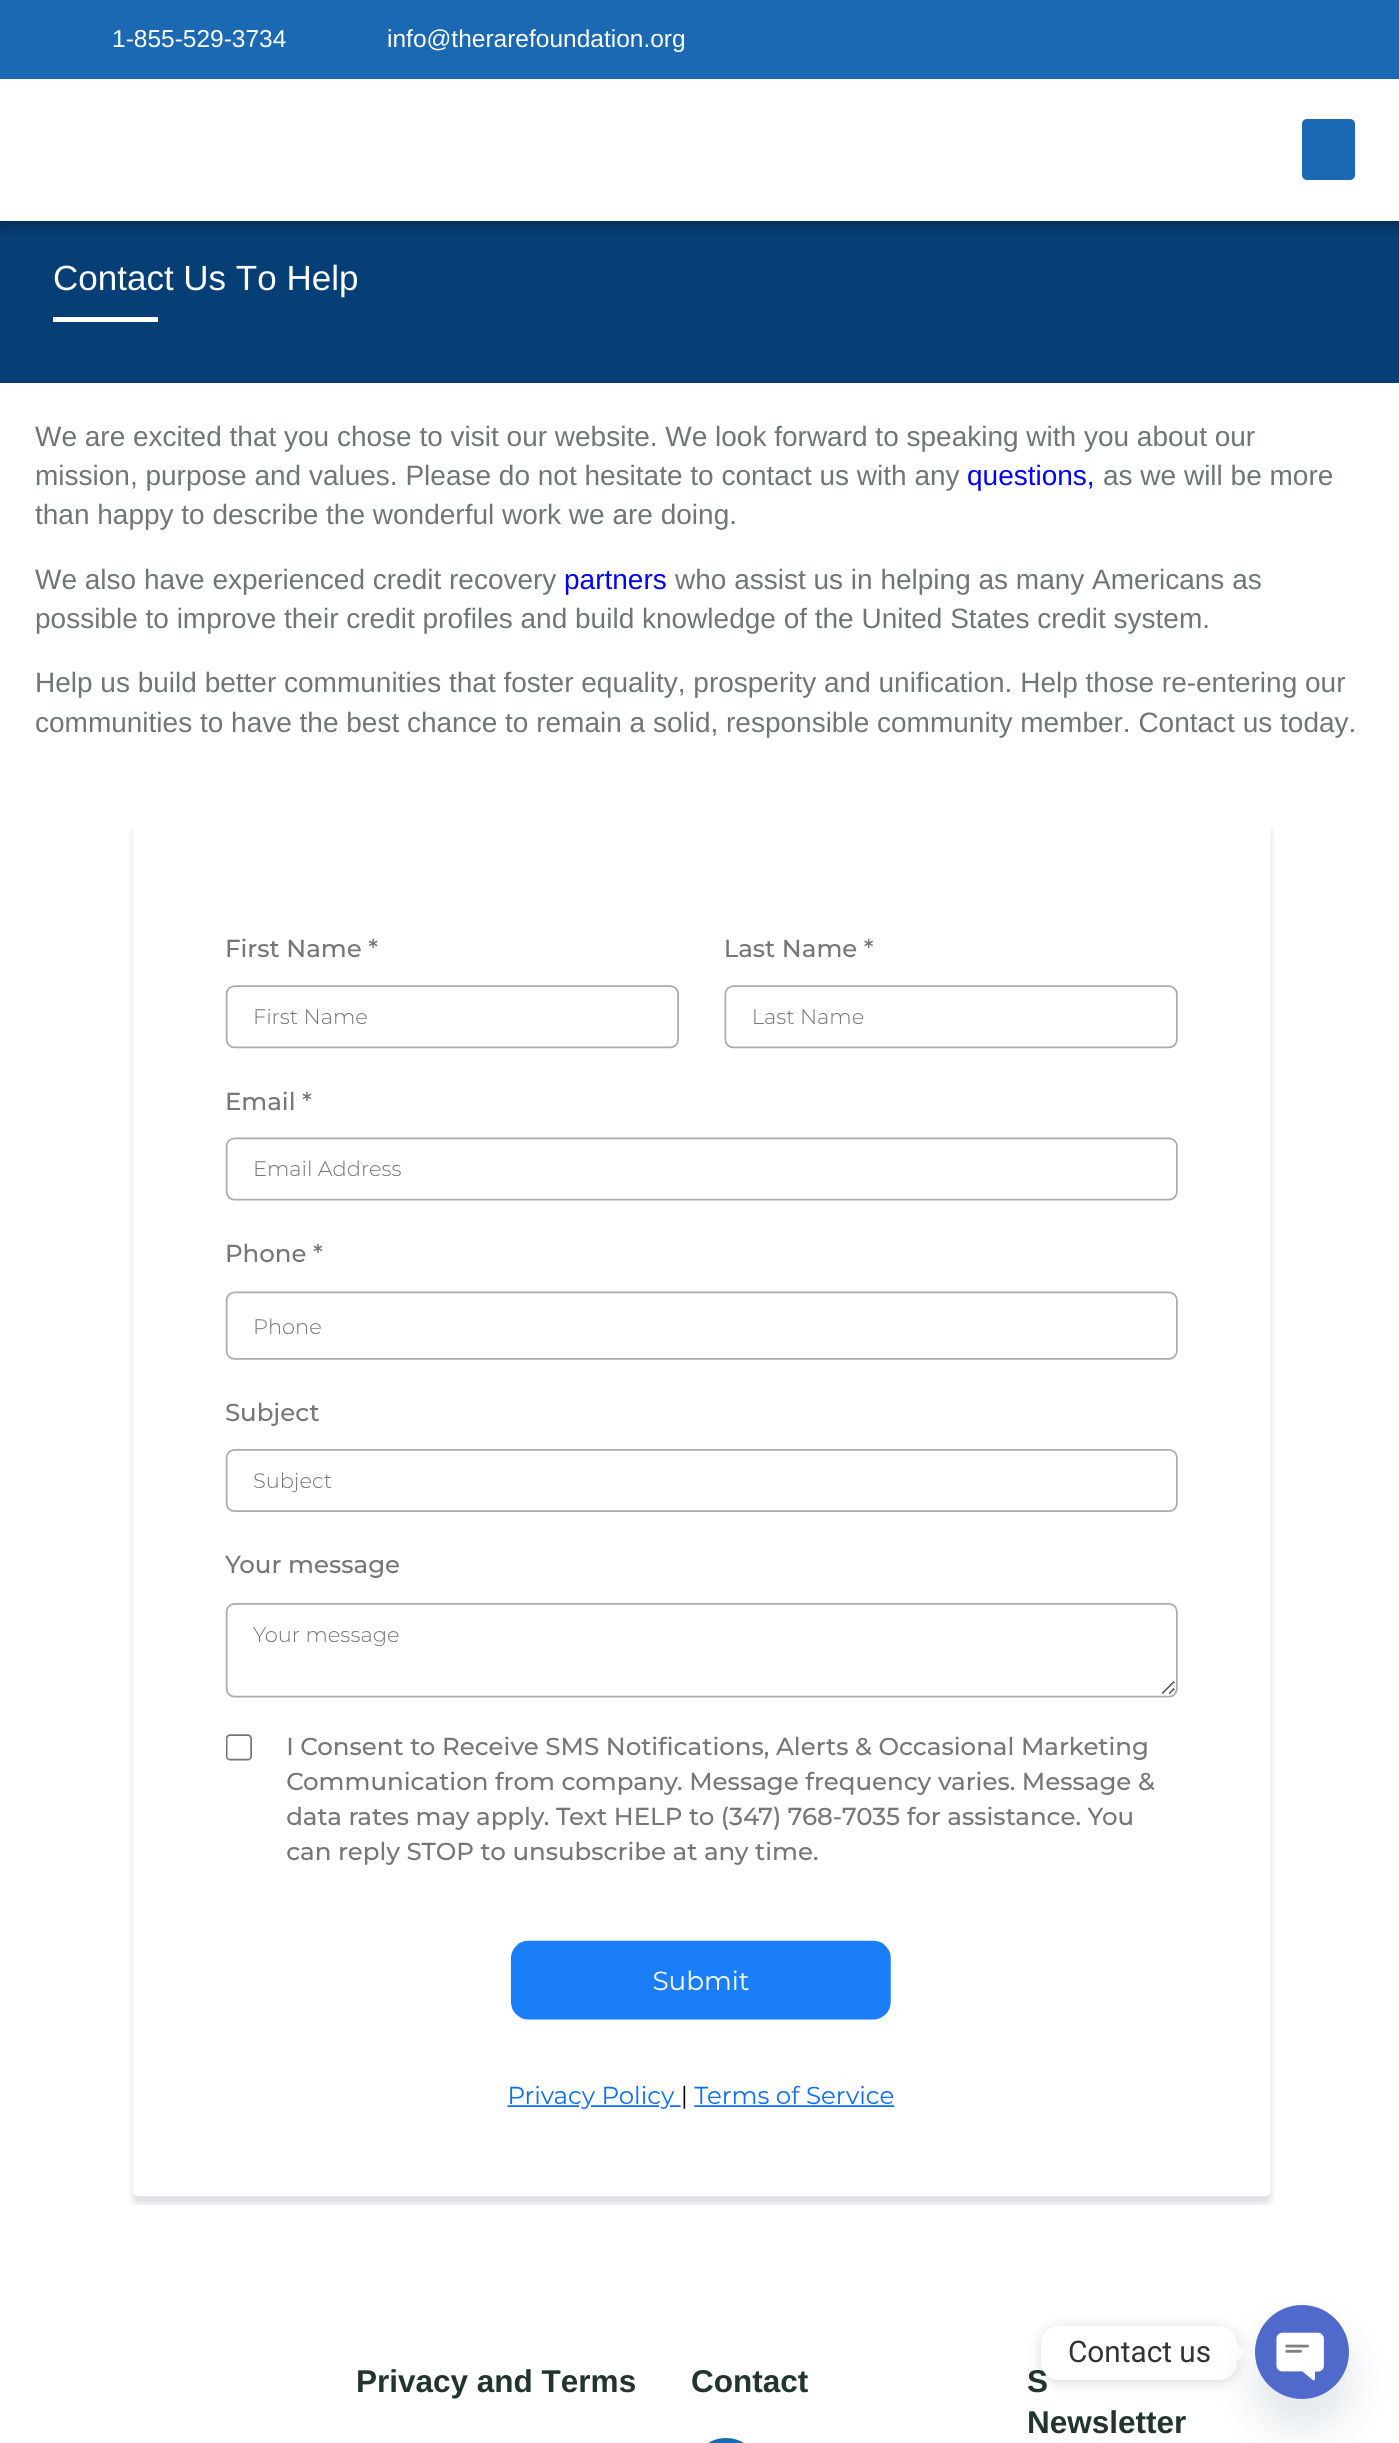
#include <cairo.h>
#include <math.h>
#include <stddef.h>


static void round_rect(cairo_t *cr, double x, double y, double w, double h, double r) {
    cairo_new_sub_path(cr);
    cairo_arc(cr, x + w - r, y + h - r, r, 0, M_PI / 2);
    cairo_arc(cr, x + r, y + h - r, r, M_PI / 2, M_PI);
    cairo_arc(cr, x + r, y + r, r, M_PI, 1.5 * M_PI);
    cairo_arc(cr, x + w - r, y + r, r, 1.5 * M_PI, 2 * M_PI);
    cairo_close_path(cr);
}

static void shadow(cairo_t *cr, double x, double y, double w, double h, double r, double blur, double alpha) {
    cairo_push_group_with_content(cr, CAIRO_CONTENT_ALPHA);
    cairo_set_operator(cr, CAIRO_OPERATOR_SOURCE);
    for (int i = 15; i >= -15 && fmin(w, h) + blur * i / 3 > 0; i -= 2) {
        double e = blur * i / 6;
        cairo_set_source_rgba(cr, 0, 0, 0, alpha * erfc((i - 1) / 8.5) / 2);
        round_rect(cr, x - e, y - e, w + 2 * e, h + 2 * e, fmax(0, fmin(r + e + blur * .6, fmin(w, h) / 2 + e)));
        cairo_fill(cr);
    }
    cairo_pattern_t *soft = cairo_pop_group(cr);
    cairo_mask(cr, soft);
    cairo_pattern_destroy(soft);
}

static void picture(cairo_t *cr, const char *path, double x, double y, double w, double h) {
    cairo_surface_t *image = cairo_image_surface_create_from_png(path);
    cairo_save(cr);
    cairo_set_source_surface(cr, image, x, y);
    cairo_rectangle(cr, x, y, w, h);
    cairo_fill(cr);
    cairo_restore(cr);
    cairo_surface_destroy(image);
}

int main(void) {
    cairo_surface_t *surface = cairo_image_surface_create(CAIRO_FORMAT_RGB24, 1399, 2443);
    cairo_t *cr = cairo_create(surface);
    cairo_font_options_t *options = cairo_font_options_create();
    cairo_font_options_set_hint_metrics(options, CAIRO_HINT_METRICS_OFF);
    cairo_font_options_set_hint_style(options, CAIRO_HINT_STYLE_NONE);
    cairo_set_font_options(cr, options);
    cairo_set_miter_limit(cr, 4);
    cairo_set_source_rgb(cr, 1, 1, 1);
    cairo_paint(cr);
    cairo_set_source_rgb(cr, 0.02, 0.247, 0.459);
    cairo_rectangle(cr, 0, 221, 1399, 162);
    cairo_fill(cr);
    cairo_save(cr);
    cairo_set_fill_rule(cr, CAIRO_FILL_RULE_EVEN_ODD);
    cairo_new_path(cr);
    cairo_move_to(cr, 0, 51);
    cairo_line_to(cr, 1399, 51);
    cairo_line_to(cr, 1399, 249);
    cairo_line_to(cr, 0, 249);
    cairo_close_path(cr);
    cairo_move_to(cr, 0, 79);
    cairo_line_to(cr, 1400, 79);
    cairo_line_to(cr, 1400, 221);
    cairo_line_to(cr, 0, 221);
    cairo_close_path(cr);
    cairo_clip(cr);
    cairo_set_source_rgb(cr, 0, 0, 0);
    shadow(cr, 0, 79, 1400, 142, 0, 9, 0.5);
    cairo_restore(cr);
    cairo_set_source_rgb(cr, 0.106, 0.412, 0.698);
    cairo_rectangle(cr, 0, 0, 1399, 79);
    cairo_fill(cr);
    cairo_select_font_face(cr, "Liberation Sans", CAIRO_FONT_SLANT_NORMAL, CAIRO_FONT_WEIGHT_NORMAL);
    cairo_set_font_size(cr, 24.5);
    cairo_set_source_rgb(cr, 1, 1, 1);
    cairo_move_to(cr, 112, 47);
    cairo_show_text(cr, "1-855-529-3734");
    cairo_move_to(cr, 387, 47);
    cairo_show_text(cr, "info@therarefoundation.org");
    cairo_set_source_rgb(cr, 0.106, 0.412, 0.698);
    round_rect(cr, 1302, 119, 53, 61, 5);
    cairo_fill(cr);
    cairo_set_font_size(cr, 35);
    cairo_set_source_rgb(cr, 1, 1, 1);
    cairo_move_to(cr, 53, 290);
    cairo_show_text(cr, "Contact Us To Help");
    cairo_rectangle(cr, 53, 317, 105, 5);
    cairo_fill(cr);
    cairo_set_font_size(cr, 28);
    cairo_set_source_rgb(cr, 0.435, 0.467, 0.459);
    cairo_move_to(cr, 35, 446);
    cairo_show_text(cr, "We are excited that you chose to visit our website. We look forward to speaking with you about our");
    cairo_move_to(cr, 35, 485);
    cairo_show_text(cr, "mission, purpose and values. Please do not hesitate to contact us with any");
    cairo_set_source_rgb(cr, 0, 0, 1);
    cairo_move_to(cr, 967, 485);
    cairo_show_text(cr, "questions,");
    cairo_set_source_rgb(cr, 0.435, 0.467, 0.459);
    cairo_move_to(cr, 1103, 485);
    cairo_show_text(cr, "as we will be more");
    cairo_move_to(cr, 35, 524);
    cairo_show_text(cr, "than happy to describe the wonderful work we are doing.");
    cairo_move_to(cr, 35, 589);
    cairo_show_text(cr, "We also have experienced credit recovery");
    cairo_set_source_rgb(cr, 0, 0, 1);
    cairo_move_to(cr, 564, 589);
    cairo_show_text(cr, "partners");
    cairo_set_source_rgb(cr, 0.435, 0.467, 0.459);
    cairo_move_to(cr, 675, 589);
    cairo_show_text(cr, "who assist us in helping as many Americans as");
    cairo_move_to(cr, 35, 628);
    cairo_show_text(cr, "possible to improve their credit profiles and build knowledge of the United States credit system.");
    cairo_move_to(cr, 35, 692);
    cairo_show_text(cr, "Help us build better communities that foster equality, prosperity and unification. Help those re-entering our");
    cairo_move_to(cr, 35, 732);
    cairo_show_text(cr, "communities to have the best chance to remain a solid, responsible community member. Contact us today.");
    picture(cr, "img1.png", 129, 826, 1146, 1379);
    cairo_set_source_rgb(cr, 0, 0, 0);
    shadow(cr, 1041, 2328, 196, 54, 18, 7, 0.15);
    cairo_select_font_face(cr, "Liberation Sans", CAIRO_FONT_SLANT_NORMAL, CAIRO_FONT_WEIGHT_BOLD);
    cairo_set_font_size(cr, 31.5);
    cairo_set_source_rgb(cr, 0.129, 0.204, 0.188);
    cairo_move_to(cr, 1027, 2392);
    cairo_show_text(cr, "S");
    cairo_set_source_rgb(cr, 1, 1, 1);
    round_rect(cr, 1041, 2326, 196, 54, 18);
    cairo_fill(cr);
    cairo_select_font_face(cr, "Roboto", CAIRO_FONT_SLANT_NORMAL, CAIRO_FONT_WEIGHT_NORMAL);
    cairo_set_font_size(cr, 29.75);
    cairo_set_source_rgb(cr, 0.2, 0.2, 0.2);
    cairo_move_to(cr, 1068, 2362);
    cairo_show_text(cr, "Contact us");
    cairo_set_source_rgb(cr, 1, 1, 1);
    cairo_new_path(cr);
    cairo_move_to(cr, 1237, 2361.5);
    cairo_line_to(cr, 1237, 2344);
    cairo_line_to(cr, 1246, 2353);
    cairo_close_path(cr);
    cairo_fill(cr);
    cairo_set_source_rgb(cr, 0.286, 0.408, 0.494);
    shadow(cr, 1255, 2333, 94, 94, 47, 21, 0.16);
    picture(cr, "img2.png", 1255, 2305, 94, 94);
    cairo_select_font_face(cr, "Liberation Sans", CAIRO_FONT_SLANT_NORMAL, CAIRO_FONT_WEIGHT_BOLD);
    cairo_set_font_size(cr, 31.5);
    cairo_set_source_rgb(cr, 0.129, 0.204, 0.188);
    cairo_move_to(cr, 356, 2392);
    cairo_show_text(cr, "Privacy and Terms");
    cairo_move_to(cr, 691, 2392);
    cairo_show_text(cr, "Contact");
    cairo_set_source_rgb(cr, 0.106, 0.412, 0.698);
    round_rect(cr, 691, 2438, 70, 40, 35);
    cairo_fill(cr);
    cairo_set_source_rgb(cr, 0.129, 0.204, 0.188);
    cairo_move_to(cr, 1027, 2433);
    cairo_show_text(cr, "Newsletter");
    cairo_surface_write_to_png(surface, "page.png");
    cairo_font_options_destroy(options);
    cairo_destroy(cr);
    cairo_surface_destroy(surface);
    return 0;
}
